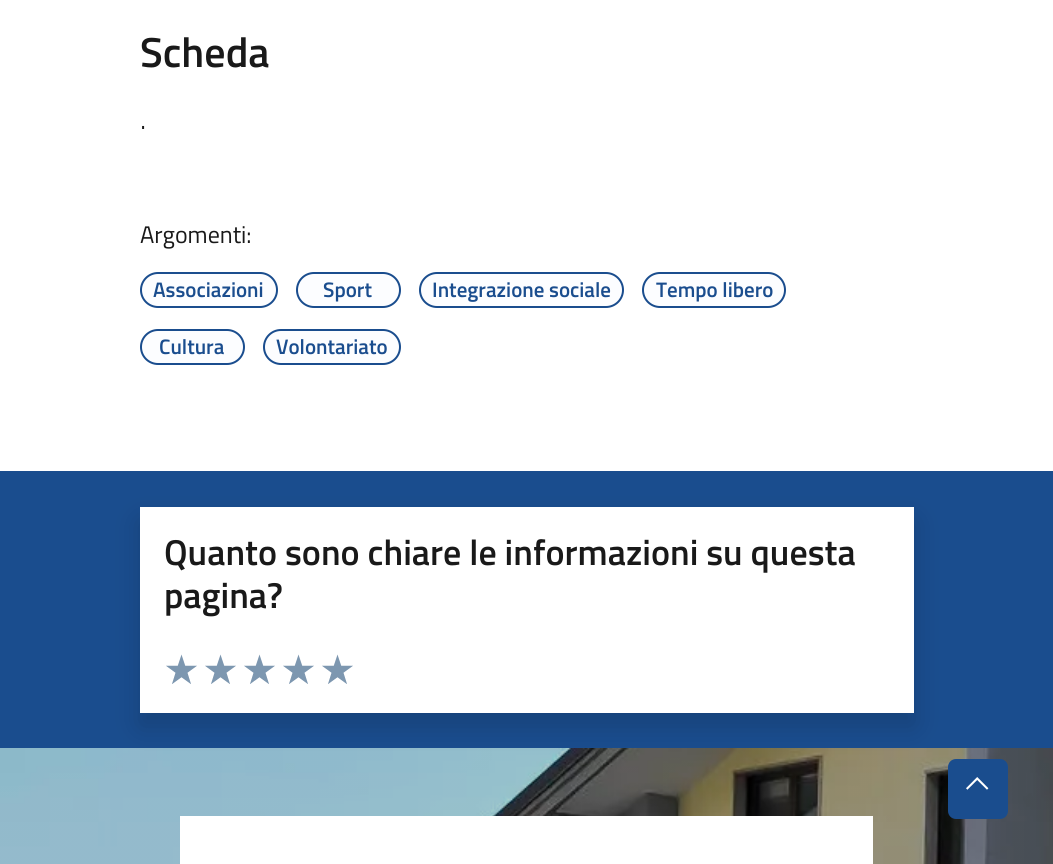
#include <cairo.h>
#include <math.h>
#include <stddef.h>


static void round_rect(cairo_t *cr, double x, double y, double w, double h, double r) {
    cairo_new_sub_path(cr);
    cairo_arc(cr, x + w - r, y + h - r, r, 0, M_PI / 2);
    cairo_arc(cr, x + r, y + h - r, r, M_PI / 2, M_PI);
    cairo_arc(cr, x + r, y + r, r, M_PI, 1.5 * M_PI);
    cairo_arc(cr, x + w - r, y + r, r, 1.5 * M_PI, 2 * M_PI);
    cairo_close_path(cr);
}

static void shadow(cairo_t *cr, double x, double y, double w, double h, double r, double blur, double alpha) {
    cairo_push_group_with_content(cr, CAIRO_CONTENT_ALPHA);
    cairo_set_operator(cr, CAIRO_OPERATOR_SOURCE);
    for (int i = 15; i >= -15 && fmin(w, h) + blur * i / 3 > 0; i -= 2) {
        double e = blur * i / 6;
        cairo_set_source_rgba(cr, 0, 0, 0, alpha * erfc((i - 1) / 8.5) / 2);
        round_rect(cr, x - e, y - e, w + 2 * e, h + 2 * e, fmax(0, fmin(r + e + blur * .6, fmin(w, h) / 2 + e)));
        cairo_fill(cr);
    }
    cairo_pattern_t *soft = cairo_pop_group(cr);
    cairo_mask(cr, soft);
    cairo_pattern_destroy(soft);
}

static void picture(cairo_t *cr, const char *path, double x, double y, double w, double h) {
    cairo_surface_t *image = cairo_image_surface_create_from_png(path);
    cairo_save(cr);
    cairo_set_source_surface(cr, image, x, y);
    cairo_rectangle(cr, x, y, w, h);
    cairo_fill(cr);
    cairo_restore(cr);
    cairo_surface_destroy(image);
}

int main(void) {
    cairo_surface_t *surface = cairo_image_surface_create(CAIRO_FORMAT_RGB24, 1053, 864);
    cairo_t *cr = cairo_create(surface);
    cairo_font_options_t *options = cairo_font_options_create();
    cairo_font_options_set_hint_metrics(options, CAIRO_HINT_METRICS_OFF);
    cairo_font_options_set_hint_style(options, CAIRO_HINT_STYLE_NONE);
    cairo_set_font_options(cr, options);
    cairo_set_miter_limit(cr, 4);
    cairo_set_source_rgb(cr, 1, 1, 1);
    cairo_paint(cr);
    cairo_select_font_face(cr, "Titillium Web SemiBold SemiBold", CAIRO_FONT_SLANT_NORMAL, CAIRO_FONT_WEIGHT_NORMAL);
    cairo_set_font_size(cr, 42);
    cairo_set_source_rgb(cr, 0.098, 0.098, 0.098);
    cairo_move_to(cr, 140, 67);
    cairo_show_text(cr, "Scheda");
    cairo_select_font_face(cr, "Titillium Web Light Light", CAIRO_FONT_SLANT_NORMAL, CAIRO_FONT_WEIGHT_NORMAL);
    cairo_set_font_size(cr, 30);
    cairo_move_to(cr, 140, 129);
    cairo_show_text(cr, ".");
    cairo_select_font_face(cr, "Titillium Web", CAIRO_FONT_SLANT_NORMAL, CAIRO_FONT_WEIGHT_NORMAL);
    cairo_set_font_size(cr, 24);
    cairo_move_to(cr, 140, 243);
    cairo_show_text(cr, "Argomenti:");
    cairo_set_source_rgb(cr, 0.988, 0.992, 1);
    round_rect(cr, 141, 273, 136, 34, 17);
    cairo_fill_preserve(cr);
    cairo_set_source_rgb(cr, 0.102, 0.302, 0.557);
    cairo_stroke(cr);
    cairo_select_font_face(cr, "Titillium Web SemiBold SemiBold", CAIRO_FONT_SLANT_NORMAL, CAIRO_FONT_WEIGHT_NORMAL);
    cairo_set_font_size(cr, 21);
    cairo_move_to(cr, 153, 297);
    cairo_show_text(cr, "Associazioni");
    cairo_set_source_rgb(cr, 0.988, 0.992, 1);
    round_rect(cr, 297, 273, 103, 34, 17);
    cairo_fill_preserve(cr);
    cairo_set_source_rgb(cr, 0.102, 0.302, 0.557);
    cairo_stroke(cr);
    cairo_move_to(cr, 323, 297);
    cairo_show_text(cr, "Sport");
    cairo_set_source_rgb(cr, 0.988, 0.992, 1);
    round_rect(cr, 420, 273, 203, 34, 17);
    cairo_fill_preserve(cr);
    cairo_set_source_rgb(cr, 0.102, 0.302, 0.557);
    cairo_stroke(cr);
    cairo_move_to(cr, 432, 297);
    cairo_show_text(cr, "Integrazione sociale");
    cairo_set_source_rgb(cr, 0.988, 0.992, 1);
    round_rect(cr, 643, 273, 142, 34, 17);
    cairo_fill_preserve(cr);
    cairo_set_source_rgb(cr, 0.102, 0.302, 0.557);
    cairo_stroke(cr);
    cairo_move_to(cr, 656, 297);
    cairo_show_text(cr, "Tempo libero");
    cairo_set_source_rgb(cr, 0.988, 0.992, 1);
    round_rect(cr, 141, 330, 103, 34, 17);
    cairo_fill_preserve(cr);
    cairo_set_source_rgb(cr, 0.102, 0.302, 0.557);
    cairo_stroke(cr);
    cairo_move_to(cr, 159, 354);
    cairo_show_text(cr, "Cultura");
    cairo_set_source_rgb(cr, 0.988, 0.992, 1);
    round_rect(cr, 264, 330, 136, 34, 17);
    cairo_fill_preserve(cr);
    cairo_set_source_rgb(cr, 0.102, 0.302, 0.557);
    cairo_stroke(cr);
    cairo_move_to(cr, 276, 354);
    cairo_show_text(cr, "Volontariato");
    cairo_rectangle(cr, 0, 471, 1053, 277);
    cairo_fill(cr);
    picture(cr, "img3.png", 0, 748, 1053, 116);
    cairo_set_source_rgb(cr, 0, 0, 0);
    shadow(cr, 140, 521, 774, 205, 0, 13.5, 0.15);
    cairo_set_source_rgb(cr, 1, 1, 1);
    cairo_rectangle(cr, 140, 507, 774, 206);
    cairo_fill(cr);
    cairo_set_font_size(cr, 36);
    cairo_set_source_rgb(cr, 0.098, 0.098, 0.098);
    cairo_move_to(cr, 164, 565);
    cairo_show_text(cr, "Quanto sono chiare le informazioni su questa");
    cairo_move_to(cr, 164, 608);
    cairo_show_text(cr, "pagina?");
    picture(cr, "img1.png", 166, 654, 31, 30);
    picture(cr, "img1.png", 205, 654, 31, 30);
    picture(cr, "img2.png", 244, 654, 31, 30);
    picture(cr, "img1.png", 283, 654, 31, 30);
    picture(cr, "img1.png", 322, 654, 31, 30);
    cairo_set_source_rgb(cr, 1, 1, 1);
    cairo_rectangle(cr, 180, 816, 693, 48);
    cairo_fill(cr);
    cairo_set_source_rgb(cr, 0.102, 0.302, 0.557);
    round_rect(cr, 948, 759, 60, 60, 8);
    cairo_fill(cr);
    picture(cr, "img4.png", 966, 777, 23, 13);
    cairo_surface_write_to_png(surface, "page.png");
    cairo_font_options_destroy(options);
    cairo_destroy(cr);
    cairo_surface_destroy(surface);
    return 0;
}
